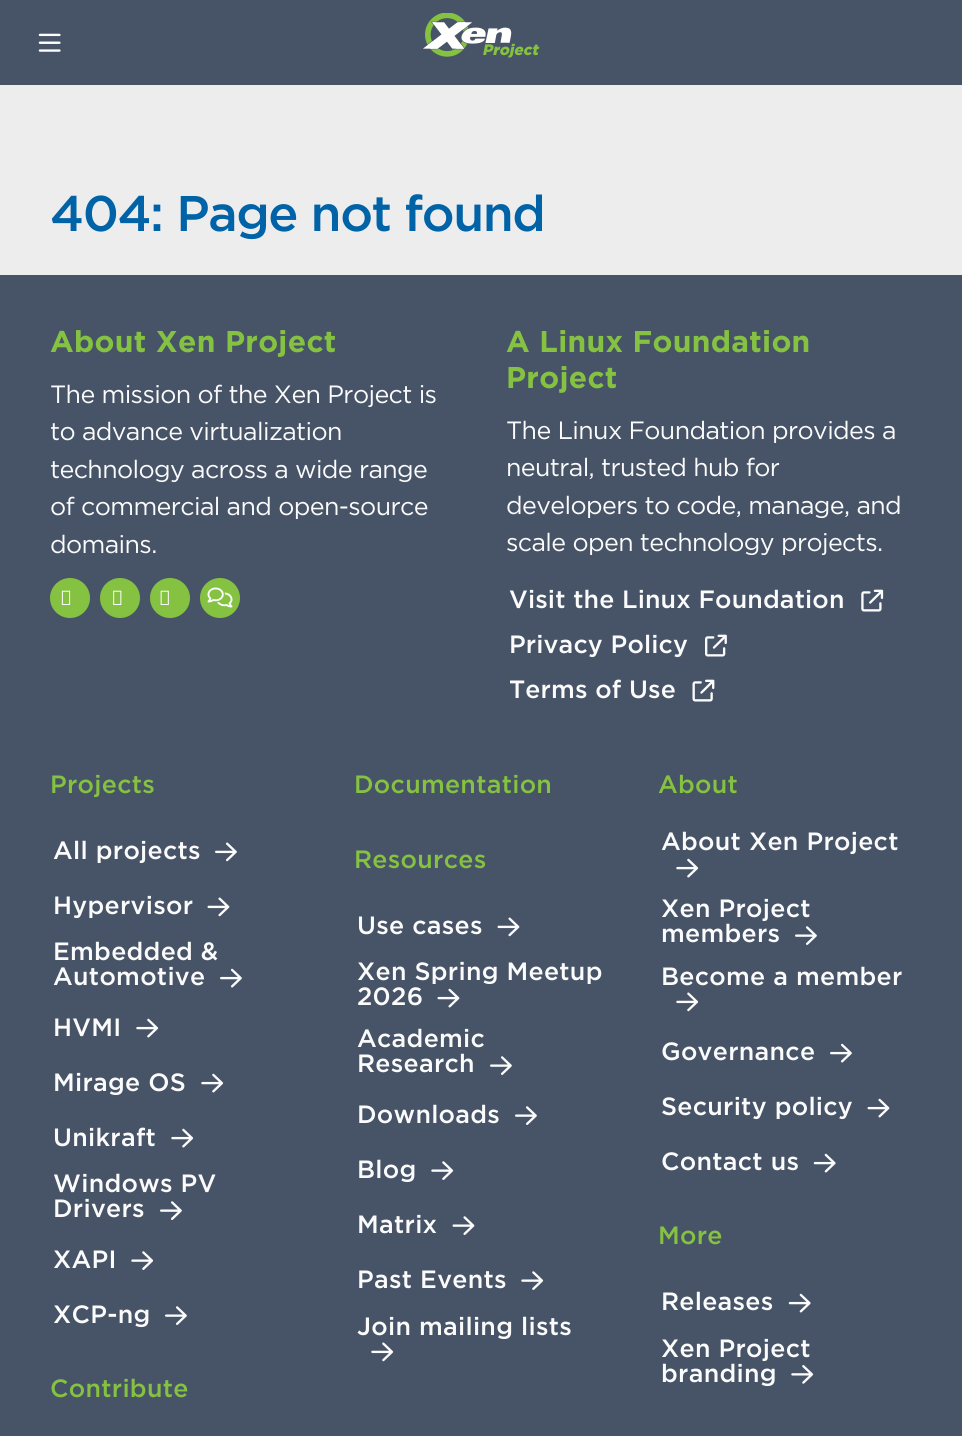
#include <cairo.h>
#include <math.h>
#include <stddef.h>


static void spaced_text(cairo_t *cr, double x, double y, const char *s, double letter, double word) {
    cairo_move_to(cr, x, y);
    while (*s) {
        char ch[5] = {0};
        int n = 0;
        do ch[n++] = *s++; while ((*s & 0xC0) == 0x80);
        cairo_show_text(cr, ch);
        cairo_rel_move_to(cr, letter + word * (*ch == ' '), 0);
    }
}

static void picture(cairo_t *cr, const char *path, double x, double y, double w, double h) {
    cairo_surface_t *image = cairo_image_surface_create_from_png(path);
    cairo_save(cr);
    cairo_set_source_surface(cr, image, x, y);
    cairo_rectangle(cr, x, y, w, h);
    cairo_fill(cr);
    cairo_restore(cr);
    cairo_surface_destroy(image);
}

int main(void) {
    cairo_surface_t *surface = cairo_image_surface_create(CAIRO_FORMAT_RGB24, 962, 1436);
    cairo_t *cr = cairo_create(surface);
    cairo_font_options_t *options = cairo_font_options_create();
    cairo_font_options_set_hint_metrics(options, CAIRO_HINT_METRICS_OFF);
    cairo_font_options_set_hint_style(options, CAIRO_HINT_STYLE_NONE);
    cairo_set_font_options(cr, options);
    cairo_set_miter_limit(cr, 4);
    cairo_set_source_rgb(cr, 0.929, 0.929, 0.929);
    cairo_paint(cr);
    cairo_set_source_rgb(cr, 0.278, 0.329, 0.404);
    cairo_rectangle(cr, 0, 0, 962, 85);
    cairo_fill(cr);
    picture(cr, "img1.png", 38, 33, 23, 19);
    picture(cr, "img2.png", 423, 13, 117, 45);
    cairo_select_font_face(cr, "Gotham Medium", CAIRO_FONT_SLANT_NORMAL, CAIRO_FONT_WEIGHT_NORMAL);
    cairo_set_font_size(cr, 50);
    cairo_set_source_rgb(cr, 0, 0.384, 0.655);
    spaced_text(cr, 50, 231, "404: Page not found", -1.4, 0);
    cairo_set_source_rgb(cr, 0.278, 0.329, 0.404);
    cairo_rectangle(cr, 0, 275, 962, 1161);
    cairo_fill(cr);
    cairo_select_font_face(cr, "Gotham", CAIRO_FONT_SLANT_NORMAL, CAIRO_FONT_WEIGHT_BOLD);
    cairo_set_font_size(cr, 30);
    cairo_set_source_rgb(cr, 0.522, 0.761, 0.255);
    spaced_text(cr, 50, 352, "About Xen Project", 0.3, 0);
    cairo_select_font_face(cr, "Gotham", CAIRO_FONT_SLANT_NORMAL, CAIRO_FONT_WEIGHT_NORMAL);
    cairo_set_font_size(cr, 25);
    cairo_set_source_rgb(cr, 0.984, 0.984, 0.984);
    spaced_text(cr, 50, 403, "The mission of the Xen Project is", -0.6, 0);
    spaced_text(cr, 50, 440, "to advance virtualization", -0.6, 0);
    spaced_text(cr, 50, 478, "technology across a wide range", -0.6, 0);
    spaced_text(cr, 50, 515, "of commercial and open-source", -0.6, 0);
    spaced_text(cr, 50, 553, "domains.", -0.6, 0);
    cairo_set_source_rgb(cr, 0.522, 0.761, 0.255);
    cairo_new_path(cr);
    cairo_arc(cr, 70, 598, 20, 0, 2 * M_PI);
    cairo_fill(cr);
    picture(cr, "img3.png", 61, 590, 10, 15);
    cairo_arc(cr, 120, 598, 20, 0, 2 * M_PI);
    cairo_fill(cr);
    picture(cr, "img4.png", 113, 590, 9, 15);
    cairo_arc(cr, 170, 598, 20, 0, 2 * M_PI);
    cairo_fill(cr);
    picture(cr, "img5.png", 160, 590, 9, 15);
    cairo_arc(cr, 220, 598, 20, 0, 2 * M_PI);
    cairo_fill(cr);
    picture(cr, "img6.png", 207, 587, 26, 21);
    cairo_select_font_face(cr, "Gotham", CAIRO_FONT_SLANT_NORMAL, CAIRO_FONT_WEIGHT_BOLD);
    cairo_set_font_size(cr, 30);
    spaced_text(cr, 506, 352, "A Linux Foundation", 0.3, 0);
    spaced_text(cr, 506, 388, "Project", 0.3, 0);
    cairo_select_font_face(cr, "Gotham", CAIRO_FONT_SLANT_NORMAL, CAIRO_FONT_WEIGHT_NORMAL);
    cairo_set_font_size(cr, 25);
    cairo_set_source_rgb(cr, 0.984, 0.984, 0.984);
    spaced_text(cr, 506, 439, "The Linux Foundation provides a", -0.6, 0);
    spaced_text(cr, 506, 476, "neutral, trusted hub for", -0.6, 0);
    spaced_text(cr, 506, 514, "developers to code, manage, and", -0.6, 0);
    spaced_text(cr, 506, 551, "scale open technology projects.", -0.6, 0);
    cairo_select_font_face(cr, "Gotham Medium", CAIRO_FONT_SLANT_NORMAL, CAIRO_FONT_WEIGHT_NORMAL);
    spaced_text(cr, 509, 608, "Visit the Linux Foundation", 0.15, 0);
    picture(cr, "img7.png", 861, 589, 23, 23);
    spaced_text(cr, 509, 653, "Privacy Policy", 0.15, 0);
    picture(cr, "img8.png", 705, 634, 22, 23);
    spaced_text(cr, 509, 698, "Terms of Use", 0.15, 0);
    picture(cr, "img9.png", 692, 679, 23, 23);
    cairo_set_source_rgb(cr, 0.522, 0.761, 0.255);
    spaced_text(cr, 50, 793, "Projects", 0.3, 0);
    cairo_set_source_rgb(cr, 0.984, 0.984, 0.984);
    spaced_text(cr, 53, 859, "All projects", 0.3, 0);
    picture(cr, "img10.png", 215, 842, 22, 20);
    spaced_text(cr, 53, 914, "Hypervisor", 0.3, 0);
    picture(cr, "img11.png", 207, 897, 23, 20);
    spaced_text(cr, 53, 960, "Embedded &", 0.3, 0);
    spaced_text(cr, 53, 985, "Automotive", 0.3, 0);
    picture(cr, "img12.png", 220, 968, 22, 20);
    spaced_text(cr, 53, 1036, "HVMI", 0.3, 0);
    picture(cr, "img13.png", 136, 1018, 23, 20);
    spaced_text(cr, 53, 1091, "Mirage OS", 0.3, 0);
    picture(cr, "img13.png", 201, 1073, 23, 20);
    spaced_text(cr, 53, 1146, "Unikraft", 0.3, 0);
    picture(cr, "img13.png", 171, 1128, 23, 20);
    spaced_text(cr, 53, 1192, "Windows PV", 0.3, 0);
    spaced_text(cr, 53, 1217, "Drivers", 0.3, 0);
    picture(cr, "img14.png", 160, 1201, 22, 19);
    spaced_text(cr, 53, 1268, "XAPI", 0.3, 0);
    picture(cr, "img15.png", 131, 1251, 23, 19);
    spaced_text(cr, 53, 1323, "XCP-ng", 0.3, 0);
    picture(cr, "img14.png", 165, 1306, 22, 19);
    cairo_set_source_rgb(cr, 0.522, 0.761, 0.255);
    spaced_text(cr, 354, 793, "Documentation", 0.3, 0);
    spaced_text(cr, 658, 793, "About", 0.3, 0);
    cairo_set_source_rgb(cr, 0.984, 0.984, 0.984);
    spaced_text(cr, 661, 850, "About Xen Project", 0.3, 0);
    picture(cr, "img13.png", 676, 858, 23, 20);
    spaced_text(cr, 661, 917, "Xen Project", 0.3, 0);
    spaced_text(cr, 661, 942, "members", 0.3, 0);
    picture(cr, "img14.png", 795, 926, 22, 19);
    spaced_text(cr, 661, 985, "Become a member", 0.3, 0);
    picture(cr, "img16.png", 676, 992, 23, 20);
    spaced_text(cr, 661, 1060, "Governance", 0.3, 0);
    picture(cr, "img12.png", 830, 1043, 22, 20);
    spaced_text(cr, 661, 1115, "Security policy", 0.3, 0);
    picture(cr, "img17.png", 867, 1098, 23, 20);
    spaced_text(cr, 661, 1170, "Contact us", 0.3, 0);
    picture(cr, "img18.png", 813, 1153, 23, 20);
    cairo_set_source_rgb(cr, 0.522, 0.761, 0.255);
    spaced_text(cr, 50, 1397, "Contribute", 0.3, 0);
    spaced_text(cr, 354, 868, "Resources", 0.3, 0);
    cairo_set_source_rgb(cr, 0.984, 0.984, 0.984);
    spaced_text(cr, 357, 934, "Use cases", 0.3, 0);
    picture(cr, "img11.png", 497, 917, 23, 20);
    spaced_text(cr, 357, 980, "Xen Spring Meetup", 0.3, 0);
    spaced_text(cr, 357, 1005, "2026", 0.3, 0);
    picture(cr, "img17.png", 437, 988, 23, 20);
    spaced_text(cr, 357, 1047, "Academic", 0.3, 0);
    spaced_text(cr, 357, 1072, "Research", 0.3, 0);
    picture(cr, "img14.png", 490, 1056, 22, 19);
    spaced_text(cr, 357, 1123, "Downloads", 0.3, 0);
    picture(cr, "img14.png", 515, 1106, 22, 19);
    spaced_text(cr, 357, 1178, "Blog", 0.3, 0);
    picture(cr, "img15.png", 431, 1161, 23, 19);
    spaced_text(cr, 357, 1233, "Matrix", 0.3, 0);
    picture(cr, "img19.png", 452, 1216, 23, 19);
    spaced_text(cr, 357, 1288, "Past Events", 0.3, 0);
    picture(cr, "img15.png", 521, 1271, 23, 19);
    spaced_text(cr, 357, 1335, "Join mailing lists", 0.3, 0);
    picture(cr, "img16.png", 371, 1342, 23, 20);
    cairo_set_source_rgb(cr, 0.522, 0.761, 0.255);
    spaced_text(cr, 658, 1244, "More", 0.3, 0);
    cairo_set_source_rgb(cr, 0.984, 0.984, 0.984);
    spaced_text(cr, 661, 1310, "Releases", 0.3, 0);
    picture(cr, "img18.png", 788, 1293, 23, 20);
    spaced_text(cr, 661, 1357, "Xen Project", 0.3, 0);
    spaced_text(cr, 661, 1382, "branding", 0.3, 0);
    picture(cr, "img20.png", 791, 1365, 23, 19);
    cairo_surface_write_to_png(surface, "page.png");
    cairo_font_options_destroy(options);
    cairo_destroy(cr);
    cairo_surface_destroy(surface);
    return 0;
}
